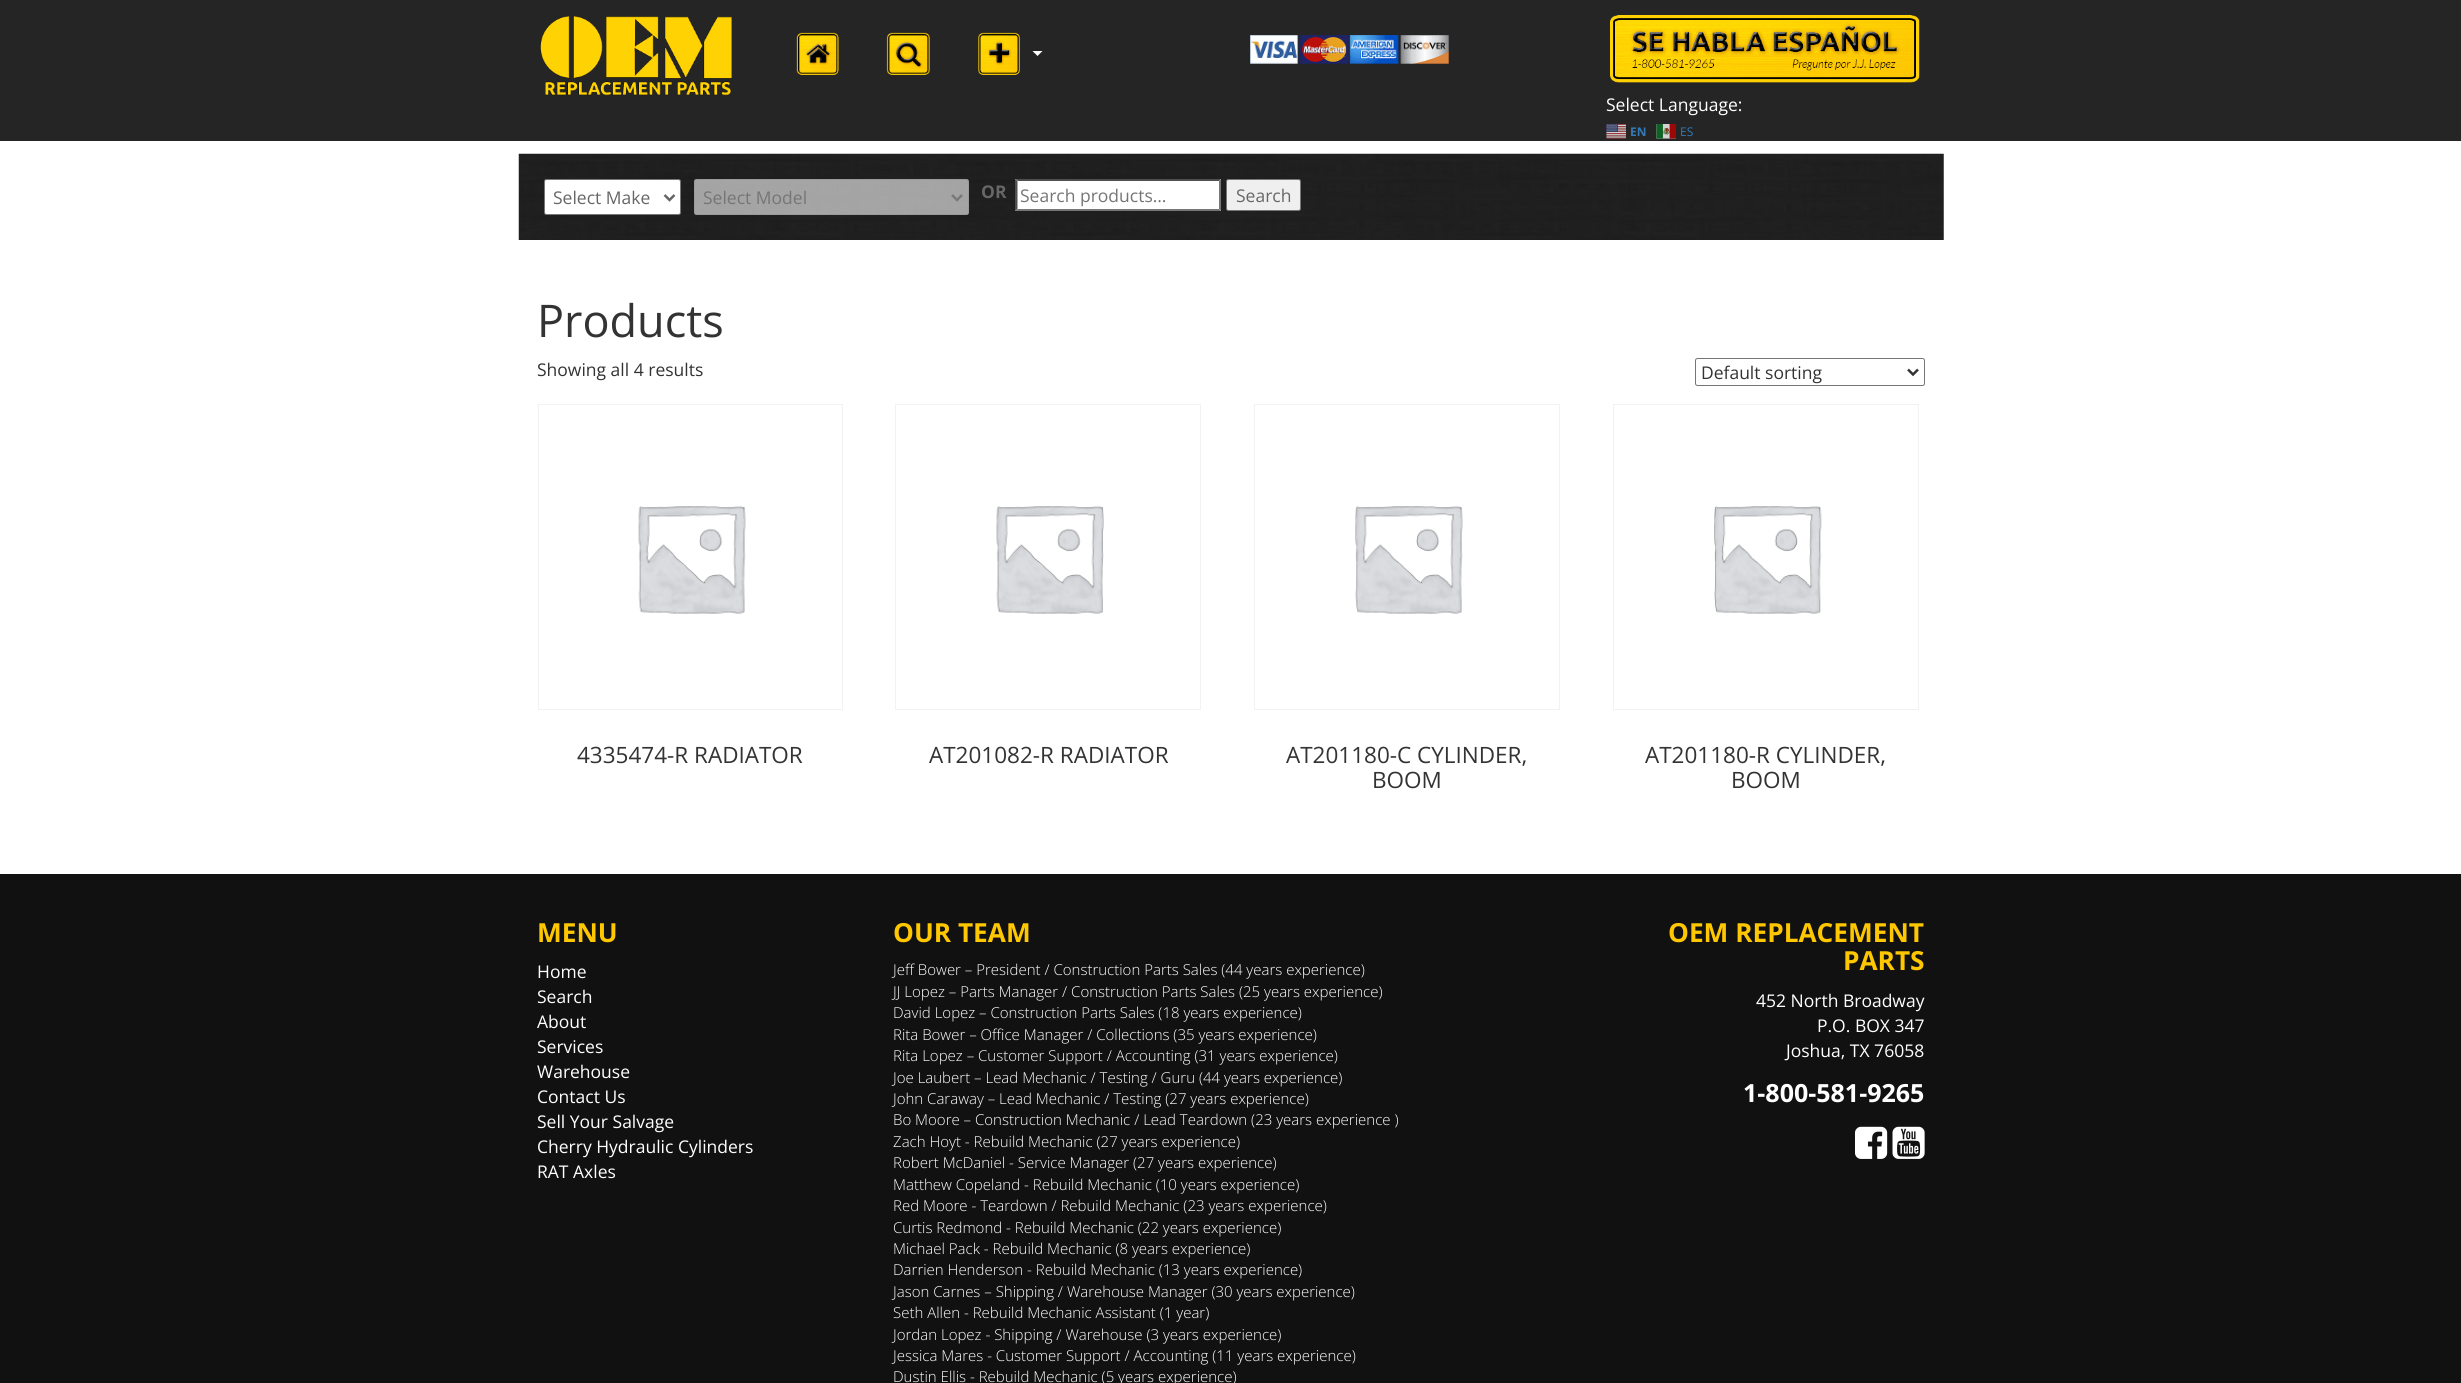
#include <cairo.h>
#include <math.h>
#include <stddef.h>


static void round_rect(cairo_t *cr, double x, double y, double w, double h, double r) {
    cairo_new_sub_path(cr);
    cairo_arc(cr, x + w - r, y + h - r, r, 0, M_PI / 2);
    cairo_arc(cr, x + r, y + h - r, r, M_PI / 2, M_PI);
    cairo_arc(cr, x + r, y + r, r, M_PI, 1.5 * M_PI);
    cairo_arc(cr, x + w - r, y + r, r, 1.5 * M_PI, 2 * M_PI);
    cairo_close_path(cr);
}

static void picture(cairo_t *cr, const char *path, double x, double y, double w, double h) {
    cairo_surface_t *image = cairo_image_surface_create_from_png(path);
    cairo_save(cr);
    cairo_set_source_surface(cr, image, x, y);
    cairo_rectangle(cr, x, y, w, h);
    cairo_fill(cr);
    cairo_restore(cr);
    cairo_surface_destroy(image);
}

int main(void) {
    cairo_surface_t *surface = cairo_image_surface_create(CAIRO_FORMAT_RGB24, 2461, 1383);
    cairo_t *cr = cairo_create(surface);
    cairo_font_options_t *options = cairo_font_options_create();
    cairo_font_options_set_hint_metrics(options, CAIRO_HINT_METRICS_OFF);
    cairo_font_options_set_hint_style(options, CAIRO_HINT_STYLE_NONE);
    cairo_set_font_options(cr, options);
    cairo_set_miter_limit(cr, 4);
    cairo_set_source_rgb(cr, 1, 1, 1);
    cairo_paint(cr);
    cairo_set_source_rgb(cr, 0.145, 0.145, 0.145);
    cairo_rectangle(cr, 0, 0, 2461, 141);
    cairo_fill(cr);
    picture(cr, "img1.png", 540, 16, 192, 80);
    picture(cr, "img2.png", 796, 32, 43, 43);
    picture(cr, "img3.png", 886, 32, 44, 43);
    picture(cr, "img4.png", 978, 32, 42, 43);
    cairo_set_source_rgb(cr, 1, 1, 1);
    cairo_new_path(cr);
    cairo_move_to(cr, 1032.5, 51);
    cairo_line_to(cr, 1042.5, 51);
    cairo_line_to(cr, 1037.5, 56);
    cairo_close_path(cr);
    cairo_fill(cr);
    picture(cr, "img5.png", 1250, 35, 199, 29);
    picture(cr, "img6.png", 1610, 15, 310, 68);
    cairo_select_font_face(cr, "Open Sans", CAIRO_FONT_SLANT_NORMAL, CAIRO_FONT_WEIGHT_NORMAL);
    cairo_set_font_size(cr, 17.5);
    cairo_move_to(cr, 1606, 111);
    cairo_show_text(cr, "Select Language:");
    picture(cr, "img7.png", 1606, 124, 20, 15);
    cairo_select_font_face(cr, "Open Sans", CAIRO_FONT_SLANT_NORMAL, CAIRO_FONT_WEIGHT_BOLD);
    cairo_set_font_size(cr, 12);
    cairo_set_source_rgb(cr, 0.2, 0.478, 0.718);
    cairo_move_to(cr, 1630, 136);
    cairo_show_text(cr, "EN");
    picture(cr, "img8.png", 1656, 124, 20, 15);
    cairo_select_font_face(cr, "Open Sans", CAIRO_FONT_SLANT_NORMAL, CAIRO_FONT_WEIGHT_NORMAL);
    cairo_move_to(cr, 1680, 136);
    cairo_show_text(cr, "ES");
    picture(cr, "img9.png", 518, 153, 1426, 87);
    cairo_set_source_rgb(cr, 1, 1, 1);
    round_rect(cr, 544.5, 179.5, 136, 35, 2);
    cairo_fill_preserve(cr);
    cairo_set_source_rgb(cr, 0.463, 0.463, 0.463);
    cairo_set_line_width(cr, 1);
    cairo_stroke(cr);
    cairo_new_path(cr);
    cairo_move_to(cr, 664.5, 195);
    cairo_line_to(cr, 669.5, 200);
    cairo_line_to(cr, 674.5, 195);
    cairo_set_source_rgb(cr, 0.4, 0.4, 0.4);
    cairo_set_line_width(cr, 2.5);
    cairo_stroke(cr);
    cairo_set_font_size(cr, 17.5);
    cairo_move_to(cr, 553, 204);
    cairo_show_text(cr, "Select Make");
    cairo_set_source_rgba(cr, 0.867, 0.867, 0.867, 0.7);
    round_rect(cr, 694, 179, 275, 36, 2.5);
    cairo_fill(cr);
    round_rect(cr, 694.5, 179.5, 274, 35, 2);
    cairo_set_source_rgba(cr, 0.463, 0.463, 0.463, 0.21);
    cairo_set_line_width(cr, 1);
    cairo_stroke(cr);
    cairo_new_path(cr);
    cairo_move_to(cr, 952, 195);
    cairo_line_to(cr, 957, 200);
    cairo_line_to(cr, 962, 195);
    cairo_set_source_rgb(cr, 0.475, 0.475, 0.475);
    cairo_set_line_width(cr, 2.5);
    cairo_stroke(cr);
    cairo_set_source_rgb(cr, 0.459, 0.459, 0.459);
    cairo_move_to(cr, 703, 204);
    cairo_show_text(cr, "Select Model");
    cairo_select_font_face(cr, "Open Sans", CAIRO_FONT_SLANT_NORMAL, CAIRO_FONT_WEIGHT_BOLD);
    cairo_set_source_rgb(cr, 0.4, 0.4, 0.4);
    cairo_move_to(cr, 981, 198);
    cairo_show_text(cr, "OR");
    cairo_set_source_rgb(cr, 1, 1, 1);
    cairo_rectangle(cr, 1015, 179, 206, 32);
    cairo_fill(cr);
    cairo_set_source_rgb(cr, 0.31, 0.31, 0.31);
    cairo_new_path(cr);
    cairo_move_to(cr, 1015, 179);
    cairo_line_to(cr, 1221, 179);
    cairo_line_to(cr, 1219, 181);
    cairo_line_to(cr, 1018, 181);
    cairo_close_path(cr);
    cairo_fill(cr);
    cairo_set_source_rgb(cr, 0.463, 0.463, 0.463);
    cairo_new_path(cr);
    cairo_move_to(cr, 1221, 179);
    cairo_line_to(cr, 1221, 211);
    cairo_line_to(cr, 1219, 209);
    cairo_line_to(cr, 1219, 181);
    cairo_close_path(cr);
    cairo_fill(cr);
    cairo_new_path(cr);
    cairo_move_to(cr, 1221, 211);
    cairo_line_to(cr, 1015, 211);
    cairo_line_to(cr, 1018, 209);
    cairo_line_to(cr, 1219, 209);
    cairo_close_path(cr);
    cairo_fill(cr);
    cairo_set_source_rgb(cr, 0.31, 0.31, 0.31);
    cairo_new_path(cr);
    cairo_move_to(cr, 1015, 211);
    cairo_line_to(cr, 1015, 179);
    cairo_line_to(cr, 1017.5, 181);
    cairo_line_to(cr, 1017.5, 209);
    cairo_close_path(cr);
    cairo_fill(cr);
    cairo_select_font_face(cr, "Open Sans", CAIRO_FONT_SLANT_NORMAL, CAIRO_FONT_WEIGHT_NORMAL);
    cairo_set_source_rgb(cr, 0.459, 0.459, 0.459);
    cairo_move_to(cr, 1020, 202);
    cairo_show_text(cr, "Search products…");
    cairo_set_source_rgb(cr, 0.937, 0.937, 0.937);
    round_rect(cr, 1226.5, 179.5, 74, 31, 2);
    cairo_fill_preserve(cr);
    cairo_set_source_rgb(cr, 0.463, 0.463, 0.463);
    cairo_set_line_width(cr, 1);
    cairo_stroke(cr);
    cairo_set_source_rgb(cr, 0.4, 0.4, 0.4);
    cairo_move_to(cr, 1236, 202);
    cairo_show_text(cr, "Search");
    cairo_set_font_size(cr, 45);
    cairo_set_source_rgb(cr, 0.2, 0.2, 0.2);
    cairo_move_to(cr, 537, 337);
    cairo_show_text(cr, "Products");
    cairo_set_font_size(cr, 17.5);
    cairo_move_to(cr, 537, 376);
    cairo_show_text(cr, "Showing all 4 results");
    round_rect(cr, 1695.5, 358.5, 229, 27, 2);
    cairo_set_source_rgb(cr, 0.463, 0.463, 0.463);
    cairo_stroke(cr);
    cairo_new_path(cr);
    cairo_move_to(cr, 1908, 369.5);
    cairo_line_to(cr, 1913, 374.5);
    cairo_line_to(cr, 1918, 369.5);
    cairo_set_source_rgb(cr, 0.2, 0.2, 0.2);
    cairo_set_line_width(cr, 2.5);
    cairo_stroke(cr);
    cairo_move_to(cr, 1701, 379);
    cairo_show_text(cr, "Default sorting");
    cairo_rectangle(cr, 538.5, 404.5, 304, 305);
    cairo_set_source_rgb(cr, 0.949, 0.949, 0.949);
    cairo_set_line_width(cr, 1);
    cairo_stroke(cr);
    picture(cr, "img10.png", 638, 506, 108, 108);
    cairo_set_font_size(cr, 22.5);
    cairo_set_source_rgb(cr, 0.2, 0.2, 0.2);
    cairo_move_to(cr, 577, 763);
    cairo_show_text(cr, "4335474-R RADIATOR");
    cairo_rectangle(cr, 895.5, 404.5, 305, 305);
    cairo_set_source_rgb(cr, 0.949, 0.949, 0.949);
    cairo_stroke(cr);
    picture(cr, "img11.png", 996, 506, 108, 108);
    cairo_set_source_rgb(cr, 0.2, 0.2, 0.2);
    cairo_move_to(cr, 929, 763);
    cairo_show_text(cr, "AT201082-R RADIATOR");
    cairo_rectangle(cr, 1254.5, 404.5, 305, 305);
    cairo_set_source_rgb(cr, 0.949, 0.949, 0.949);
    cairo_stroke(cr);
    picture(cr, "img12.png", 1355, 506, 108, 108);
    cairo_set_source_rgb(cr, 0.2, 0.2, 0.2);
    cairo_move_to(cr, 1286, 763);
    cairo_show_text(cr, "AT201180-C CYLINDER,");
    cairo_move_to(cr, 1372, 788);
    cairo_show_text(cr, "BOOM");
    cairo_rectangle(cr, 1613.5, 404.5, 305, 305);
    cairo_set_source_rgb(cr, 0.949, 0.949, 0.949);
    cairo_stroke(cr);
    picture(cr, "img13.png", 1714, 506, 108, 108);
    cairo_set_source_rgb(cr, 0.2, 0.2, 0.2);
    cairo_move_to(cr, 1645, 763);
    cairo_show_text(cr, "AT201180-R CYLINDER,");
    cairo_move_to(cr, 1731, 788);
    cairo_show_text(cr, "BOOM");
    cairo_set_source_rgb(cr, 0.067, 0.067, 0.067);
    cairo_rectangle(cr, 0, 874, 2461, 509);
    cairo_fill(cr);
    cairo_select_font_face(cr, "Open Sans", CAIRO_FONT_SLANT_NORMAL, CAIRO_FONT_WEIGHT_BOLD);
    cairo_set_font_size(cr, 26.25);
    cairo_set_source_rgb(cr, 1, 0.78, 0);
    cairo_move_to(cr, 537, 942);
    cairo_show_text(cr, "MENU");
    cairo_select_font_face(cr, "Open Sans", CAIRO_FONT_SLANT_NORMAL, CAIRO_FONT_WEIGHT_NORMAL);
    cairo_set_font_size(cr, 17.5);
    cairo_set_source_rgb(cr, 1, 1, 1);
    cairo_move_to(cr, 537, 978);
    cairo_show_text(cr, "Home");
    cairo_move_to(cr, 537, 1003);
    cairo_show_text(cr, "Search");
    cairo_move_to(cr, 537, 1028);
    cairo_show_text(cr, "About");
    cairo_move_to(cr, 537, 1053);
    cairo_show_text(cr, "Services");
    cairo_move_to(cr, 537, 1078);
    cairo_show_text(cr, "Warehouse");
    cairo_move_to(cr, 537, 1103);
    cairo_show_text(cr, "Contact Us");
    cairo_move_to(cr, 537, 1128);
    cairo_show_text(cr, "Sell Your Salvage");
    cairo_move_to(cr, 537, 1153);
    cairo_show_text(cr, "Cherry Hydraulic Cylinders");
    cairo_move_to(cr, 537, 1178);
    cairo_show_text(cr, "RAT Axles");
    cairo_select_font_face(cr, "Open Sans", CAIRO_FONT_SLANT_NORMAL, CAIRO_FONT_WEIGHT_BOLD);
    cairo_set_font_size(cr, 26.25);
    cairo_set_source_rgb(cr, 1, 0.78, 0);
    cairo_move_to(cr, 893, 942);
    cairo_show_text(cr, "OUR TEAM");
    cairo_select_font_face(cr, "Open Sans Light", CAIRO_FONT_SLANT_NORMAL, CAIRO_FONT_WEIGHT_NORMAL);
    cairo_set_font_size(cr, 15);
    cairo_set_source_rgb(cr, 1, 1, 1);
    cairo_move_to(cr, 893, 975);
    cairo_show_text(cr, "Jeff Bower – President / Construction Parts Sales (44 years experience)");
    cairo_move_to(cr, 893, 997);
    cairo_show_text(cr, "JJ Lopez – Parts Manager / Construction Parts Sales (25 years experience)");
    cairo_move_to(cr, 893, 1018);
    cairo_show_text(cr, "David Lopez – Construction Parts Sales (18 years experience)");
    cairo_move_to(cr, 893, 1040);
    cairo_show_text(cr, "Rita Bower – Office Manager / Collections (35 years experience)");
    cairo_move_to(cr, 893, 1061);
    cairo_show_text(cr, "Rita Lopez – Customer Support / Accounting (31 years experience)");
    cairo_move_to(cr, 893, 1083);
    cairo_show_text(cr, "Joe Laubert – Lead Mechanic / Testing / Guru (44 years experience)");
    cairo_move_to(cr, 893, 1104);
    cairo_show_text(cr, "John Caraway – Lead Mechanic / Testing (27 years experience)");
    cairo_move_to(cr, 893, 1125);
    cairo_show_text(cr, "Bo Moore – Construction Mechanic / Lead Teardown (23 years experience )");
    cairo_move_to(cr, 893, 1147);
    cairo_show_text(cr, "Zach Hoyt - Rebuild Mechanic (27 years experience)");
    cairo_move_to(cr, 893, 1168);
    cairo_show_text(cr, "Robert McDaniel - Service Manager (27 years experience)");
    cairo_move_to(cr, 893, 1190);
    cairo_show_text(cr, "Matthew Copeland - Rebuild Mechanic (10 years experience)");
    cairo_move_to(cr, 893, 1211);
    cairo_show_text(cr, "Red Moore - Teardown / Rebuild Mechanic (23 years experience)");
    cairo_move_to(cr, 893, 1233);
    cairo_show_text(cr, "Curtis Redmond - Rebuild Mechanic (22 years experience)");
    cairo_move_to(cr, 893, 1254);
    cairo_show_text(cr, "Michael Pack - Rebuild Mechanic (8 years experience)");
    cairo_move_to(cr, 893, 1275);
    cairo_show_text(cr, "Darrien Henderson - Rebuild Mechanic (13 years experience)");
    cairo_move_to(cr, 893, 1297);
    cairo_show_text(cr, "Jason Carnes – Shipping / Warehouse Manager (30 years experience)");
    cairo_move_to(cr, 893, 1318);
    cairo_show_text(cr, "Seth Allen - Rebuild Mechanic Assistant (1 year)");
    cairo_move_to(cr, 893, 1340);
    cairo_show_text(cr, "Jordan Lopez - Shipping / Warehouse (3 years experience)");
    cairo_move_to(cr, 893, 1361);
    cairo_show_text(cr, "Jessica Mares - Customer Support / Accounting (11 years experience)");
    cairo_move_to(cr, 893, 1382);
    cairo_show_text(cr, "Dustin Ellis - Rebuild Mechanic (5 years experience)");
    cairo_select_font_face(cr, "Open Sans", CAIRO_FONT_SLANT_NORMAL, CAIRO_FONT_WEIGHT_BOLD);
    cairo_set_font_size(cr, 26.25);
    cairo_set_source_rgb(cr, 1, 0.78, 0);
    cairo_move_to(cr, 1668, 942);
    cairo_show_text(cr, "OEM REPLACEMENT");
    cairo_move_to(cr, 1843, 970);
    cairo_show_text(cr, "PARTS");
    cairo_select_font_face(cr, "Open Sans", CAIRO_FONT_SLANT_NORMAL, CAIRO_FONT_WEIGHT_NORMAL);
    cairo_set_font_size(cr, 17.5);
    cairo_set_source_rgb(cr, 1, 1, 1);
    cairo_move_to(cr, 1756, 1007);
    cairo_show_text(cr, "452 North Broadway");
    cairo_move_to(cr, 1817, 1032);
    cairo_show_text(cr, "P.O. BOX 347");
    cairo_move_to(cr, 1786, 1057);
    cairo_show_text(cr, "Joshua, TX 76058");
    cairo_select_font_face(cr, "Open Sans", CAIRO_FONT_SLANT_NORMAL, CAIRO_FONT_WEIGHT_BOLD);
    cairo_set_font_size(cr, 25);
    cairo_move_to(cr, 1743, 1102);
    cairo_show_text(cr, "1-800-581-9265");
    picture(cr, "img14.png", 1855, 1126, 33, 33);
    picture(cr, "img15.png", 1892, 1126, 33, 33);
    cairo_surface_write_to_png(surface, "page.png");
    cairo_font_options_destroy(options);
    cairo_destroy(cr);
    cairo_surface_destroy(surface);
    return 0;
}
